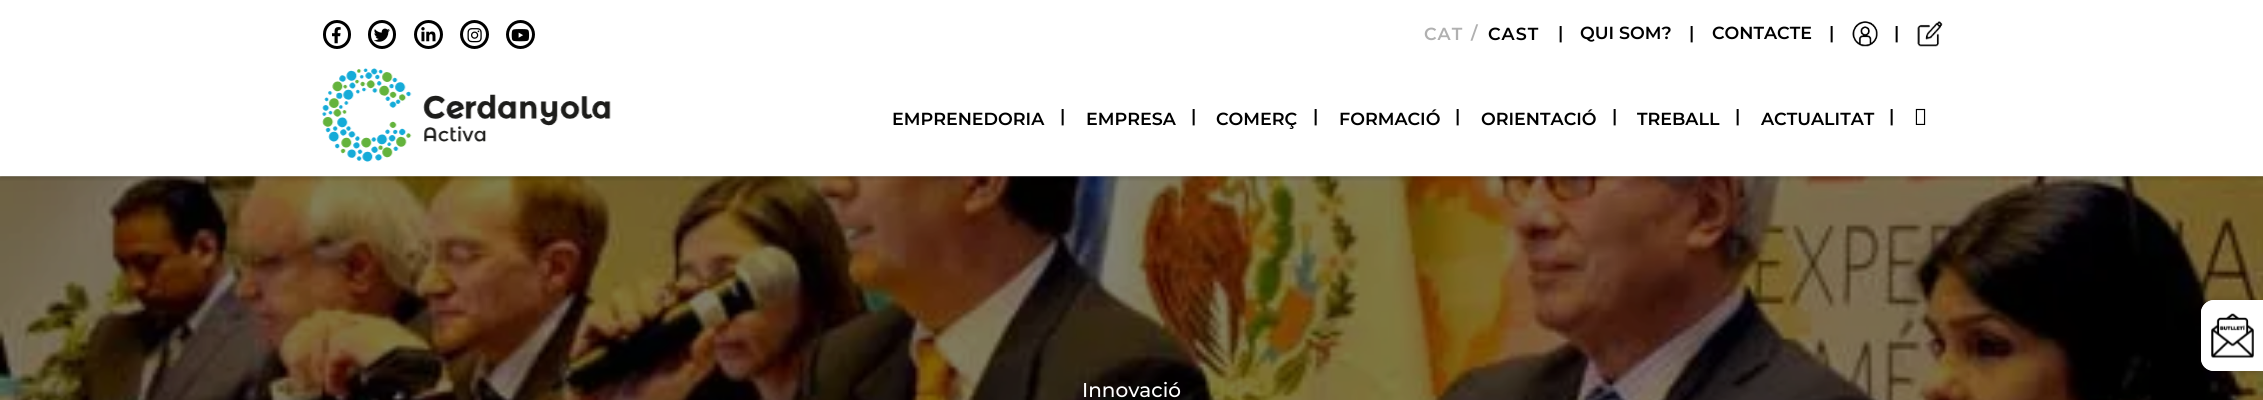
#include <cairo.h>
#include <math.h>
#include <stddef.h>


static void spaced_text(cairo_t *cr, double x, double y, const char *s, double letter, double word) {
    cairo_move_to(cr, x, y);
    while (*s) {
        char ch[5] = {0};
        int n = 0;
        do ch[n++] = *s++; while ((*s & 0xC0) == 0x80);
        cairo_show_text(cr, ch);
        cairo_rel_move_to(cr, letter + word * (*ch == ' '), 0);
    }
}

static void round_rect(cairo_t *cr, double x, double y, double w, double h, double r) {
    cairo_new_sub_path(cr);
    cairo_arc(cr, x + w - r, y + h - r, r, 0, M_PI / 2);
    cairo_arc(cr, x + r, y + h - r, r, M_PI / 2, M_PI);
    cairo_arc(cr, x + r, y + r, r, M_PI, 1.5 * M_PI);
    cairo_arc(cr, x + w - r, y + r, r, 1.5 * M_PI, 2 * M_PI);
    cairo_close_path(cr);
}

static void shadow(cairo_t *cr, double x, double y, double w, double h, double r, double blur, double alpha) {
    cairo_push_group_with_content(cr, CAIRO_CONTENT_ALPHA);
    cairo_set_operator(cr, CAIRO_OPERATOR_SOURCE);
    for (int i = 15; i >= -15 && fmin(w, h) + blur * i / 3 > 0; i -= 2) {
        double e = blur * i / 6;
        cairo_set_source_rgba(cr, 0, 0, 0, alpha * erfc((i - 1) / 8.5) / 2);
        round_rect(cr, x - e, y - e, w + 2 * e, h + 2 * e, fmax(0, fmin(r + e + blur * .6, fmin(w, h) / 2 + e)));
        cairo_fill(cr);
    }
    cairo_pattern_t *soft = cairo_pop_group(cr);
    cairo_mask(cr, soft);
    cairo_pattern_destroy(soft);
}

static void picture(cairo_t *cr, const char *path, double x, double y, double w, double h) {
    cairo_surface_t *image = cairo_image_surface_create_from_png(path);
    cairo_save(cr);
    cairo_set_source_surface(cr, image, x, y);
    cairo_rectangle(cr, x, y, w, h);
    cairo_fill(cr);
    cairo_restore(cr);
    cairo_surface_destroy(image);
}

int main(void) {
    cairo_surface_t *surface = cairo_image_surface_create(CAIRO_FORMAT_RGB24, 2263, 400);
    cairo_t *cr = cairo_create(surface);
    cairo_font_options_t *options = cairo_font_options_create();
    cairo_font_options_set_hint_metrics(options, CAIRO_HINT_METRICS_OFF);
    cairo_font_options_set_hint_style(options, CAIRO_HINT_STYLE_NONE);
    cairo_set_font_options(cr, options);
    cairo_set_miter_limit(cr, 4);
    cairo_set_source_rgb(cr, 1, 1, 1);
    cairo_paint(cr);
    round_rect(cr, 324.5, 21.5, 25, 26, 12.5);
    cairo_set_source_rgb(cr, 0, 0, 0);
    cairo_set_line_width(cr, 3);
    cairo_stroke(cr);
    picture(cr, "img1.png", 332, 27, 9, 17);
    round_rect(cr, 369.5, 21.5, 25, 26, 12.5);
    cairo_stroke(cr);
    picture(cr, "img2.png", 374, 28, 16, 14);
    cairo_arc(cr, 428.5, 34.5, 13, 0, 2 * M_PI);
    cairo_stroke(cr);
    picture(cr, "img3.png", 421, 27, 15, 15);
    cairo_arc(cr, 474.5, 34.5, 13, 0, 2 * M_PI);
    cairo_stroke(cr);
    picture(cr, "img4.png", 467, 28, 15, 15);
    cairo_arc(cr, 520.5, 34.5, 13, 0, 2 * M_PI);
    cairo_stroke(cr);
    picture(cr, "img5.png", 511, 29, 19, 13);
    cairo_select_font_face(cr, "Montserrat SemiBold", CAIRO_FONT_SLANT_NORMAL, CAIRO_FONT_WEIGHT_NORMAL);
    cairo_set_font_size(cr, 17.5);
    cairo_set_source_rgb(cr, 0.69, 0.69, 0.69);
    spaced_text(cr, 1424, 40, "CAT", 1, 0);
    cairo_move_to(cr, 1471, 39);
    cairo_show_text(cr, "/");
    cairo_set_source_rgb(cr, 0, 0, 0);
    spaced_text(cr, 1488, 40, "CAST", 1, 0);
    cairo_move_to(cr, 1558, 39);
    cairo_show_text(cr, "|");
    cairo_move_to(cr, 1580, 39);
    cairo_show_text(cr, "QUI SOM?");
    cairo_move_to(cr, 1689, 39);
    cairo_show_text(cr, "|");
    cairo_move_to(cr, 1712, 39);
    cairo_show_text(cr, "CONTACTE");
    cairo_move_to(cr, 1829, 39);
    cairo_show_text(cr, "|");
    picture(cr, "img6.png", 1852, 21, 26, 26);
    cairo_move_to(cr, 1894, 39);
    cairo_show_text(cr, "|");
    picture(cr, "img7.png", 1917, 21, 26, 26);
    picture(cr, "img11.png", 0, 176, 2263, 224);
    cairo_save(cr);
    cairo_rectangle(cr, 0, 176, 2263, 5);
    cairo_clip(cr);
    cairo_set_source_rgb(cr, 0, 0, 0);
    shadow(cr, 0, 58, 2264, 121, 0, 2, 0.15);
    cairo_restore(cr);
    picture(cr, "img8.png", 322, 68, 289, 94);
    cairo_move_to(cr, 892, 125);
    cairo_show_text(cr, "EMPRENEDORIA");
    cairo_move_to(cr, 1060, 122);
    cairo_show_text(cr, "|");
    cairo_move_to(cr, 1086, 125);
    cairo_show_text(cr, "EMPRESA");
    cairo_move_to(cr, 1191, 122);
    cairo_show_text(cr, "|");
    cairo_move_to(cr, 1216, 125);
    cairo_show_text(cr, "COMERÇ");
    cairo_move_to(cr, 1313, 122);
    cairo_show_text(cr, "|");
    cairo_move_to(cr, 1339, 125);
    cairo_show_text(cr, "FORMACIÓ");
    cairo_move_to(cr, 1455, 122);
    cairo_show_text(cr, "|");
    cairo_move_to(cr, 1481, 125);
    cairo_show_text(cr, "ORIENTACIÓ");
    cairo_move_to(cr, 1612, 122);
    cairo_show_text(cr, "|");
    cairo_move_to(cr, 1637, 125);
    cairo_show_text(cr, "TREBALL");
    cairo_move_to(cr, 1735, 122);
    cairo_show_text(cr, "|");
    cairo_move_to(cr, 1761, 125);
    cairo_show_text(cr, "ACTUALITAT");
    cairo_move_to(cr, 1889, 122);
    cairo_show_text(cr, "|");
    picture(cr, "img9.png", 1915, 108, 11, 17);
    cairo_set_source_rgb(cr, 0, 0, 0);
    shadow(cr, 2199, 299, 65, 74, 14, 2.5, 0.15);
    cairo_set_source_rgb(cr, 1, 1, 1);
    cairo_new_path(cr);
    cairo_move_to(cr, 2214, 300);
    cairo_line_to(cr, 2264, 300);
    cairo_line_to(cr, 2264, 371);
    cairo_line_to(cr, 2214, 371);
    cairo_curve_to(cr, 2207, 371, 2201, 365, 2201, 358);
    cairo_line_to(cr, 2201, 313);
    cairo_curve_to(cr, 2201, 306, 2207, 300, 2214, 300);
    cairo_close_path(cr);
    cairo_fill(cr);
    cairo_set_fill_rule(cr, CAIRO_FILL_RULE_EVEN_ODD);
    cairo_new_path(cr);
    cairo_move_to(cr, 2214, 300);
    cairo_line_to(cr, 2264, 300);
    cairo_line_to(cr, 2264, 371);
    cairo_line_to(cr, 2214, 371);
    cairo_curve_to(cr, 2207, 371, 2201, 366, 2201, 359);
    cairo_line_to(cr, 2201, 312);
    cairo_curve_to(cr, 2201, 306, 2207, 300, 2214, 300);
    cairo_close_path(cr);
    cairo_move_to(cr, 2214, 304);
    cairo_line_to(cr, 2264, 304);
    cairo_line_to(cr, 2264, 368);
    cairo_line_to(cr, 2214, 368);
    cairo_curve_to(cr, 2209, 368, 2205, 364, 2205, 359);
    cairo_line_to(cr, 2205, 312);
    cairo_curve_to(cr, 2205, 308, 2209, 304, 2214, 304);
    cairo_close_path(cr);
    cairo_fill(cr);
    picture(cr, "img10.png", 2211, 313, 43, 45);
    cairo_select_font_face(cr, "Montserrat Medium", CAIRO_FONT_SLANT_NORMAL, CAIRO_FONT_WEIGHT_NORMAL);
    cairo_set_font_size(cr, 20);
    cairo_move_to(cr, 1082, 397);
    cairo_show_text(cr, "Innovació");
    cairo_surface_write_to_png(surface, "page.png");
    cairo_font_options_destroy(options);
    cairo_destroy(cr);
    cairo_surface_destroy(surface);
    return 0;
}
